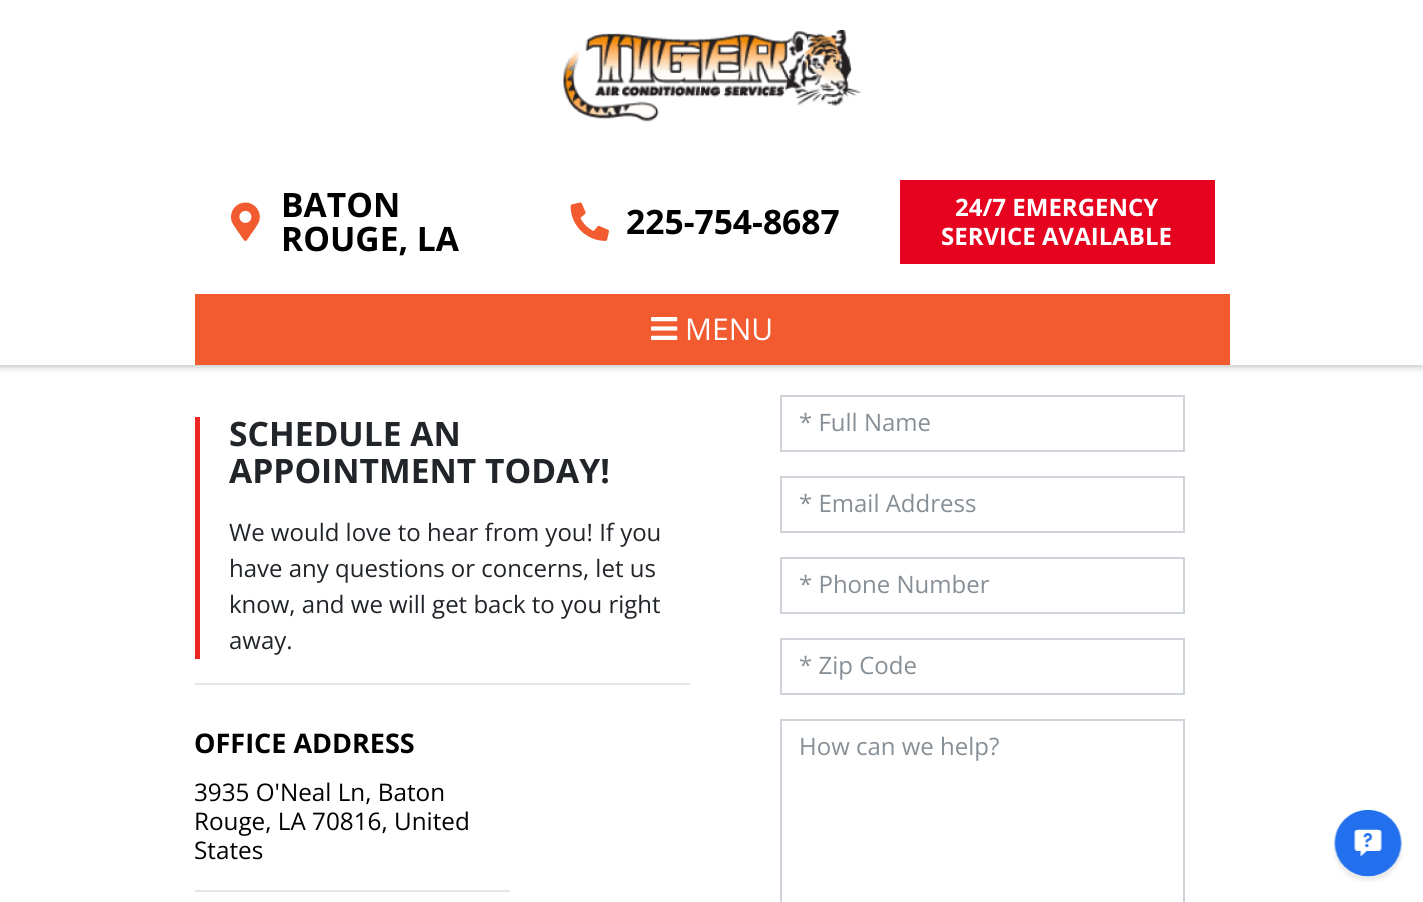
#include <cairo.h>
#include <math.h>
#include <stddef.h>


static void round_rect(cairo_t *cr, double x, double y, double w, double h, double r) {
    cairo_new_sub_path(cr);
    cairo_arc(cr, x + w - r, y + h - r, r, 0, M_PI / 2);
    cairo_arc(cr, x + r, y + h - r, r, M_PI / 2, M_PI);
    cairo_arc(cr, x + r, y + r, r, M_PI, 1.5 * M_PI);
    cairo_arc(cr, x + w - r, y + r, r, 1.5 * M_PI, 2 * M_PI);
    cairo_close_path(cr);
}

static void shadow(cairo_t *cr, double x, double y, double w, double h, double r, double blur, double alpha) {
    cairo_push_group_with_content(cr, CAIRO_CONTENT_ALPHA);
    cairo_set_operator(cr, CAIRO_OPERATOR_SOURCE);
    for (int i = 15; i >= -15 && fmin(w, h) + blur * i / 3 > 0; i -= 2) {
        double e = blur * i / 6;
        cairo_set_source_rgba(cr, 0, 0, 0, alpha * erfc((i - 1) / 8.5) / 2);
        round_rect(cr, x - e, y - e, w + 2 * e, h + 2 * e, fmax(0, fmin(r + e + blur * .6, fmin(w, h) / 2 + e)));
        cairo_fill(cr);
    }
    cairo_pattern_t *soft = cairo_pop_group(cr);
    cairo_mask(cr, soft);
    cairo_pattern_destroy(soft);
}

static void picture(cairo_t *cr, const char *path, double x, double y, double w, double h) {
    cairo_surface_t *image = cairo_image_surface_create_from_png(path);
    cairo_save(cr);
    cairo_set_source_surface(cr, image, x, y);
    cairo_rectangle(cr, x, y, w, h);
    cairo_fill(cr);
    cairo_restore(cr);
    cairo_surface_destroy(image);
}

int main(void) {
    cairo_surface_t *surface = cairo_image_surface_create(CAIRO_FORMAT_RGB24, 1423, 902);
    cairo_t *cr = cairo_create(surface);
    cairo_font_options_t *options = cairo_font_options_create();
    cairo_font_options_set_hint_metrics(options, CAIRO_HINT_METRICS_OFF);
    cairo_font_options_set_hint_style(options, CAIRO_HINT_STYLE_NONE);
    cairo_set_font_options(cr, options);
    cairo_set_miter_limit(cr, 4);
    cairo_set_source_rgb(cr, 1, 1, 1);
    cairo_paint(cr);
    cairo_set_source_rgb(cr, 0, 0, 0);
    shadow(cr, -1, 2, 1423, 364, 0, 4, 0.3);
    cairo_set_source_rgb(cr, 1, 1, 1);
    cairo_rectangle(cr, 0, 0, 1423, 365);
    cairo_fill(cr);
    picture(cr, "img1.png", 563, 30, 298, 92);
    picture(cr, "img2.png", 231, 202, 29, 39);
    cairo_select_font_face(cr, "Open Sans", CAIRO_FONT_SLANT_NORMAL, CAIRO_FONT_WEIGHT_BOLD);
    cairo_set_font_size(cr, 33.6);
    cairo_set_source_rgb(cr, 0, 0, 0);
    cairo_move_to(cr, 281, 217);
    cairo_show_text(cr, "BATON");
    cairo_move_to(cr, 281, 251);
    cairo_show_text(cr, "ROUGE, LA");
    picture(cr, "img3.png", 570, 202, 39, 39);
    cairo_move_to(cr, 626, 234);
    cairo_show_text(cr, "225-754-8687");
    cairo_set_source_rgb(cr, 0.898, 0.012, 0.122);
    cairo_rectangle(cr, 900, 180, 315, 84);
    cairo_fill(cr);
    cairo_set_font_size(cr, 24);
    cairo_set_source_rgb(cr, 1, 1, 1);
    cairo_move_to(cr, 955, 216);
    cairo_show_text(cr, "24/7 EMERGENCY");
    cairo_move_to(cr, 941, 245);
    cairo_show_text(cr, "SERVICE AVAILABLE");
    cairo_set_source_rgb(cr, 0.949, 0.353, 0.188);
    cairo_rectangle(cr, 195, 294, 1035, 71);
    cairo_fill(cr);
    picture(cr, "img4.png", 651, 317, 27, 23);
    cairo_select_font_face(cr, "Open Sans", CAIRO_FONT_SLANT_NORMAL, CAIRO_FONT_WEIGHT_NORMAL);
    cairo_set_font_size(cr, 30);
    cairo_set_source_rgb(cr, 1, 1, 1);
    cairo_move_to(cr, 685, 340);
    cairo_show_text(cr, "MENU");
    cairo_set_source_rgb(cr, 0.929, 0.149, 0.137);
    cairo_rectangle(cr, 195, 417, 5, 242);
    cairo_fill(cr);
    cairo_select_font_face(cr, "Open Sans", CAIRO_FONT_SLANT_NORMAL, CAIRO_FONT_WEIGHT_BOLD);
    cairo_set_font_size(cr, 33.6);
    cairo_set_source_rgb(cr, 0.129, 0.145, 0.161);
    cairo_move_to(cr, 229, 446);
    cairo_show_text(cr, "SCHEDULE AN");
    cairo_move_to(cr, 229, 483);
    cairo_show_text(cr, "APPOINTMENT TODAY!");
    cairo_select_font_face(cr, "Open Sans", CAIRO_FONT_SLANT_NORMAL, CAIRO_FONT_WEIGHT_NORMAL);
    cairo_set_font_size(cr, 24);
    cairo_move_to(cr, 229, 541);
    cairo_show_text(cr, "We would love to hear from you! If you");
    cairo_move_to(cr, 229, 577);
    cairo_show_text(cr, "have any questions or concerns, let us");
    cairo_move_to(cr, 229, 613);
    cairo_show_text(cr, "know, and we will get back to you right");
    cairo_move_to(cr, 229, 649);
    cairo_show_text(cr, "away.");
    cairo_set_source_rgb(cr, 0.902, 0.902, 0.902);
    cairo_rectangle(cr, 195, 683, 495, 2);
    cairo_fill(cr);
    cairo_select_font_face(cr, "Open Sans", CAIRO_FONT_SLANT_NORMAL, CAIRO_FONT_WEIGHT_BOLD);
    cairo_set_font_size(cr, 27);
    cairo_set_source_rgb(cr, 0, 0, 0);
    cairo_move_to(cr, 194, 753);
    cairo_show_text(cr, "OFFICE ADDRESS");
    cairo_select_font_face(cr, "Open Sans", CAIRO_FONT_SLANT_NORMAL, CAIRO_FONT_WEIGHT_NORMAL);
    cairo_set_font_size(cr, 24.25);
    cairo_move_to(cr, 194, 801);
    cairo_show_text(cr, "3935 O'Neal Ln, Baton");
    cairo_move_to(cr, 194, 830);
    cairo_show_text(cr, "Rouge, LA 70816, United");
    cairo_move_to(cr, 194, 859);
    cairo_show_text(cr, "States");
    cairo_set_source_rgb(cr, 0.902, 0.902, 0.902);
    cairo_rectangle(cr, 195, 890, 315, 2);
    cairo_fill(cr);
    cairo_rectangle(cr, 781, 396, 403, 55);
    cairo_set_source_rgb(cr, 0.808, 0.831, 0.855);
    cairo_stroke(cr);
    cairo_set_font_size(cr, 24);
    cairo_set_source_rgb(cr, 0.525, 0.557, 0.588);
    cairo_move_to(cr, 799, 431);
    cairo_show_text(cr, "* Full Name");
    cairo_rectangle(cr, 781, 477, 403, 55);
    cairo_set_source_rgb(cr, 0.808, 0.831, 0.855);
    cairo_stroke(cr);
    cairo_set_source_rgb(cr, 0.525, 0.557, 0.588);
    cairo_move_to(cr, 799, 512);
    cairo_show_text(cr, "* Email Address");
    cairo_rectangle(cr, 781, 558, 403, 55);
    cairo_set_source_rgb(cr, 0.808, 0.831, 0.855);
    cairo_stroke(cr);
    cairo_set_source_rgb(cr, 0.525, 0.557, 0.588);
    cairo_move_to(cr, 799, 593);
    cairo_show_text(cr, "* Phone Number");
    cairo_rectangle(cr, 781, 639, 403, 55);
    cairo_set_source_rgb(cr, 0.808, 0.831, 0.855);
    cairo_stroke(cr);
    cairo_set_source_rgb(cr, 0.525, 0.557, 0.588);
    cairo_move_to(cr, 799, 674);
    cairo_show_text(cr, "* Zip Code");
    cairo_rectangle(cr, 781, 720, 403, 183);
    cairo_set_source_rgb(cr, 0.808, 0.831, 0.855);
    cairo_stroke(cr);
    cairo_set_source_rgb(cr, 0.525, 0.557, 0.588);
    cairo_move_to(cr, 799, 755);
    cairo_show_text(cr, "How can we help?");
    picture(cr, "img5.png", 1333, 809, 70, 73);
    cairo_surface_write_to_png(surface, "page.png");
    cairo_font_options_destroy(options);
    cairo_destroy(cr);
    cairo_surface_destroy(surface);
    return 0;
}
